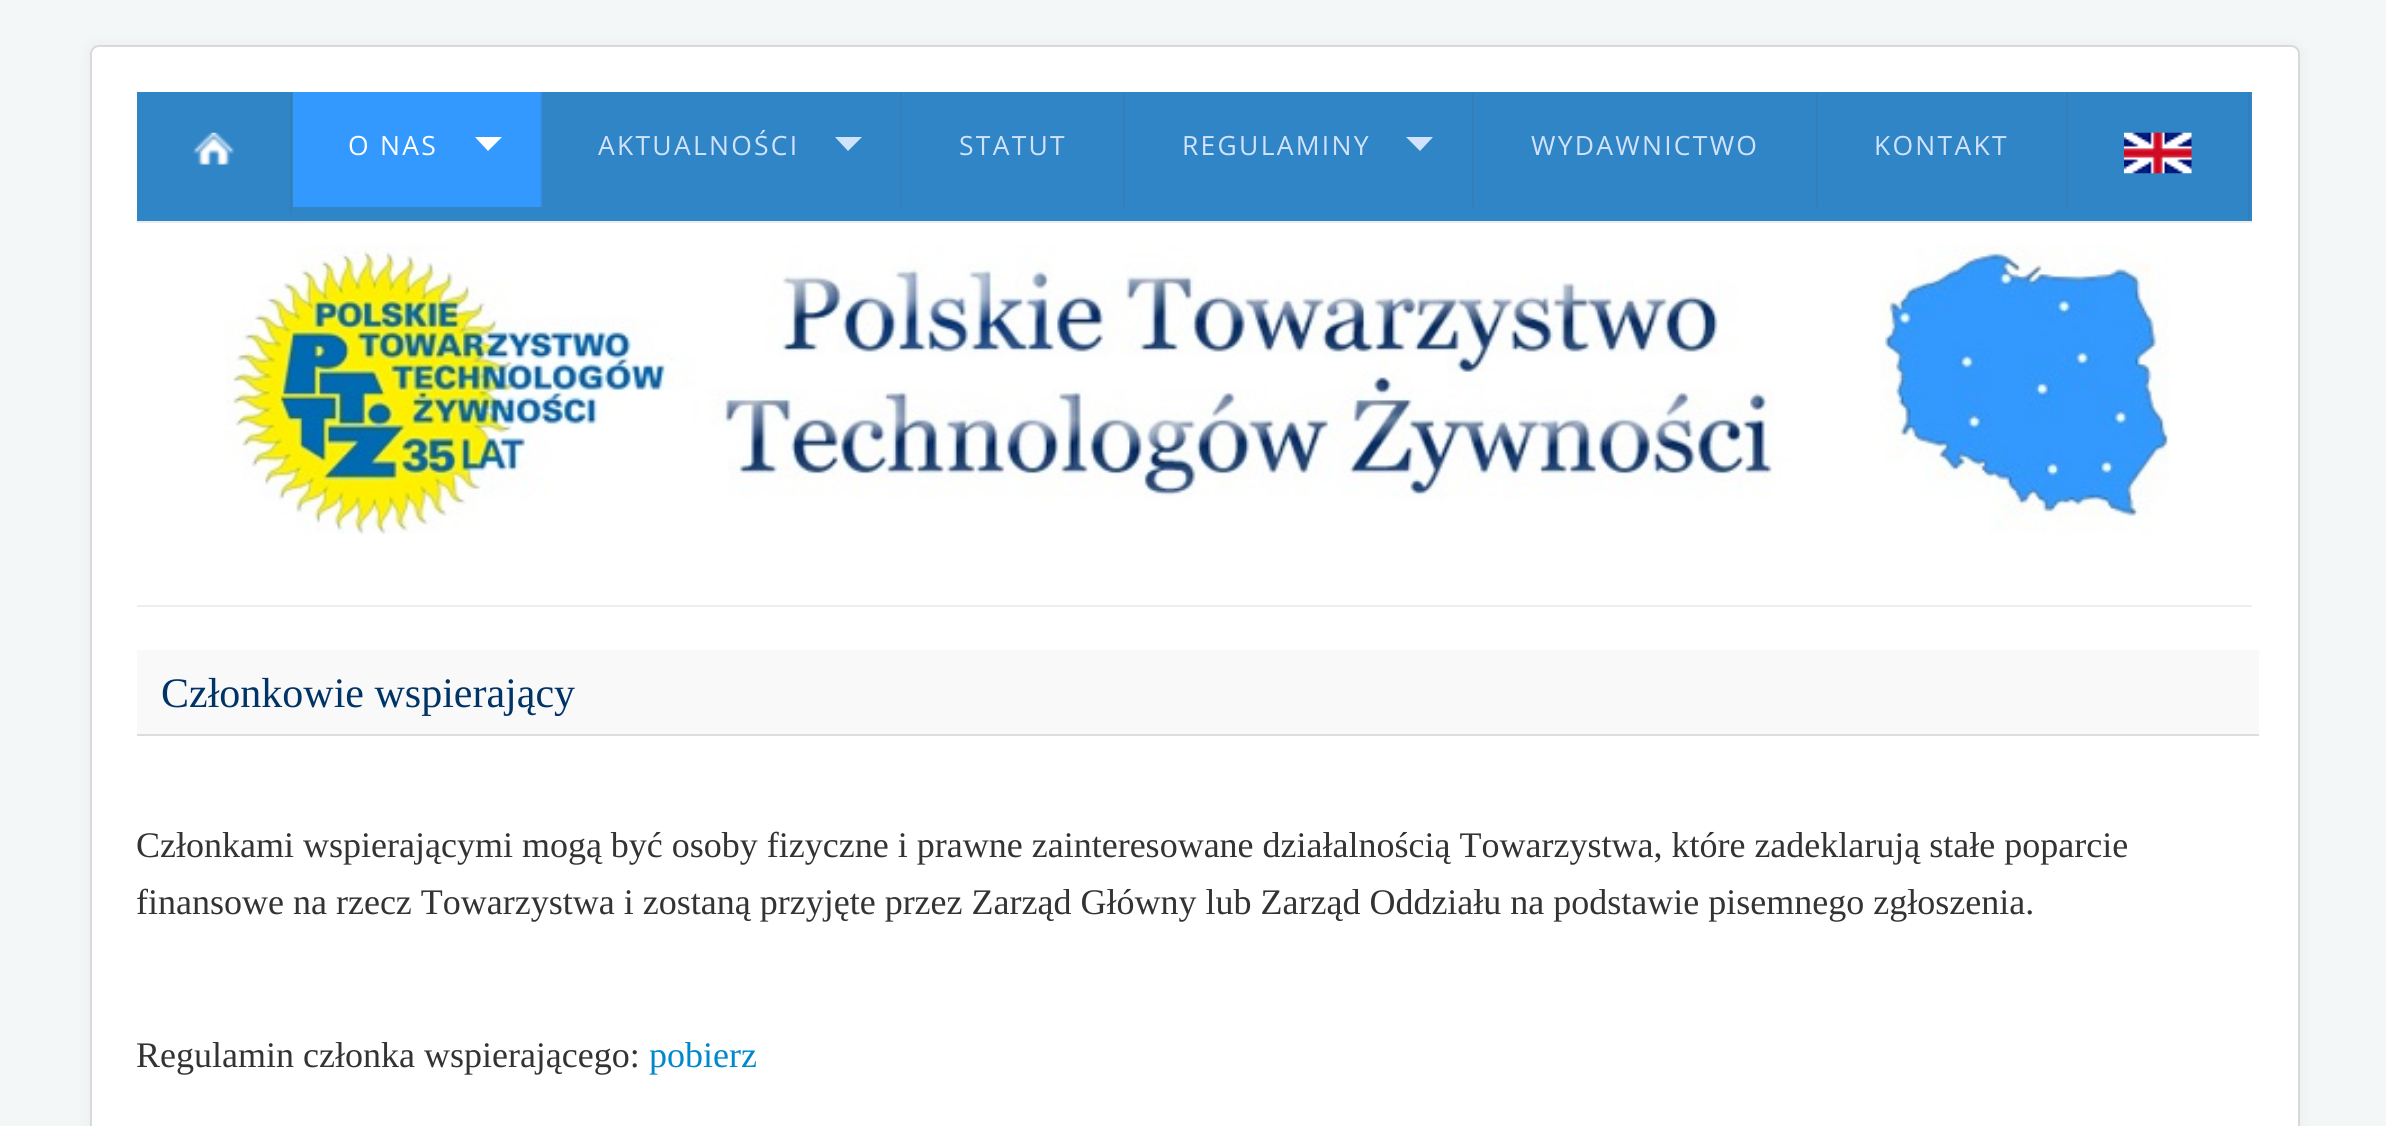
#include <cairo.h>
#include <math.h>
#include <stddef.h>


static void spaced_text(cairo_t *cr, double x, double y, const char *s, double letter, double word) {
    cairo_move_to(cr, x, y);
    while (*s) {
        char ch[5] = {0};
        int n = 0;
        do ch[n++] = *s++; while ((*s & 0xC0) == 0x80);
        cairo_show_text(cr, ch);
        cairo_rel_move_to(cr, letter + word * (*ch == ' '), 0);
    }
}

static void round_rect(cairo_t *cr, double x, double y, double w, double h, double r) {
    cairo_new_sub_path(cr);
    cairo_arc(cr, x + w - r, y + h - r, r, 0, M_PI / 2);
    cairo_arc(cr, x + r, y + h - r, r, M_PI / 2, M_PI);
    cairo_arc(cr, x + r, y + r, r, M_PI, 1.5 * M_PI);
    cairo_arc(cr, x + w - r, y + r, r, 1.5 * M_PI, 2 * M_PI);
    cairo_close_path(cr);
}

static void shadow(cairo_t *cr, double x, double y, double w, double h, double r, double blur, double alpha) {
    cairo_push_group_with_content(cr, CAIRO_CONTENT_ALPHA);
    cairo_set_operator(cr, CAIRO_OPERATOR_SOURCE);
    for (int i = 15; i >= -15 && fmin(w, h) + blur * i / 3 > 0; i -= 2) {
        double e = blur * i / 6;
        cairo_set_source_rgba(cr, 0, 0, 0, alpha * erfc((i - 1) / 8.5) / 2);
        round_rect(cr, x - e, y - e, w + 2 * e, h + 2 * e, fmax(0, fmin(r + e + blur * .6, fmin(w, h) / 2 + e)));
        cairo_fill(cr);
    }
    cairo_pattern_t *soft = cairo_pop_group(cr);
    cairo_mask(cr, soft);
    cairo_pattern_destroy(soft);
}

static void picture(cairo_t *cr, const char *path, double x, double y, double w, double h) {
    cairo_surface_t *image = cairo_image_surface_create_from_png(path);
    cairo_save(cr);
    cairo_set_source_surface(cr, image, x, y);
    cairo_rectangle(cr, x, y, w, h);
    cairo_fill(cr);
    cairo_restore(cr);
    cairo_surface_destroy(image);
}

int main(void) {
    cairo_surface_t *surface = cairo_image_surface_create(CAIRO_FORMAT_RGB24, 2386, 1126);
    cairo_t *cr = cairo_create(surface);
    cairo_font_options_t *options = cairo_font_options_create();
    cairo_font_options_set_hint_metrics(options, CAIRO_HINT_METRICS_OFF);
    cairo_font_options_set_hint_style(options, CAIRO_HINT_STYLE_NONE);
    cairo_set_font_options(cr, options);
    cairo_set_miter_limit(cr, 4);
    cairo_set_source_rgb(cr, 0.957, 0.965, 0.969);
    cairo_paint(cr);
    cairo_set_source_rgb(cr, 0, 0, 0);
    shadow(cr, 90, 45, 2210, 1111, 9, 7, 0.05);
    cairo_set_source_rgb(cr, 1, 1, 1);
    round_rect(cr, 90, 45, 2210, 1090, 9);
    cairo_fill(cr);
    round_rect(cr, 91, 46, 2208, 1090, 8);
    cairo_set_source_rgba(cr, 0, 0, 0, 0.15);
    cairo_stroke(cr);
    cairo_set_source_rgb(cr, 0.925, 0.925, 0.925);
    cairo_rectangle(cr, 137, 221, 2115, 2);
    cairo_fill(cr);
    cairo_set_source_rgb(cr, 0.188, 0.522, 0.78);
    cairo_rectangle(cr, 137, 92, 2115, 129);
    cairo_fill(cr);
    cairo_set_source_rgb(cr, 0.204, 0.498, 0.725);
    cairo_rectangle(cr, 290, 92, 2, 122);
    cairo_fill(cr);
    picture(cr, "img1.png", 193, 132, 41, 33);
    cairo_set_source_rgb(cr, 0.2, 0.6, 1);
    cairo_rectangle(cr, 293, 92, 247, 115);
    cairo_fill(cr);
    cairo_set_source_rgb(cr, 0.212, 0.565, 0.918);
    cairo_rectangle(cr, 540, 92, 2, 115);
    cairo_fill(cr);
    cairo_select_font_face(cr, "Open Sans", CAIRO_FONT_SLANT_NORMAL, CAIRO_FONT_WEIGHT_NORMAL);
    cairo_set_font_size(cr, 26.5);
    cairo_set_source_rgb(cr, 1, 1, 1);
    spaced_text(cr, 348, 155, "O NAS", 2.25, 0);
    cairo_new_path(cr);
    cairo_move_to(cr, 475, 137);
    cairo_line_to(cr, 502, 137);
    cairo_line_to(cr, 488, 151);
    cairo_close_path(cr);
    cairo_fill(cr);
    cairo_set_source_rgb(cr, 0.204, 0.498, 0.725);
    cairo_rectangle(cr, 900, 92, 2, 115);
    cairo_fill(cr);
    cairo_set_source_rgb(cr, 0.82, 0.89, 0.984);
    spaced_text(cr, 598, 155, "AKTUALNOŚCI", 2.25, 0);
    cairo_new_path(cr);
    cairo_move_to(cr, 835, 137);
    cairo_line_to(cr, 862, 137);
    cairo_line_to(cr, 848, 151);
    cairo_close_path(cr);
    cairo_fill(cr);
    cairo_set_source_rgb(cr, 0.204, 0.498, 0.725);
    cairo_rectangle(cr, 1123, 92, 2, 115);
    cairo_fill(cr);
    cairo_set_source_rgb(cr, 0.82, 0.89, 0.984);
    spaced_text(cr, 959, 155, "STATUT", 2.25, 0);
    cairo_set_source_rgb(cr, 0.204, 0.498, 0.725);
    cairo_rectangle(cr, 1472, 92, 2, 115);
    cairo_fill(cr);
    cairo_set_source_rgb(cr, 0.82, 0.89, 0.984);
    spaced_text(cr, 1182, 155, "REGULAMINY", 2.25, 0);
    cairo_new_path(cr);
    cairo_move_to(cr, 1406, 137);
    cairo_line_to(cr, 1433, 137);
    cairo_line_to(cr, 1420, 151);
    cairo_close_path(cr);
    cairo_fill(cr);
    cairo_set_source_rgb(cr, 0.204, 0.498, 0.725);
    cairo_rectangle(cr, 1816, 92, 2, 115);
    cairo_fill(cr);
    cairo_set_source_rgb(cr, 0.82, 0.89, 0.984);
    spaced_text(cr, 1531, 155, "WYDAWNICTWO", 2.25, 0);
    cairo_set_source_rgb(cr, 0.204, 0.498, 0.725);
    cairo_rectangle(cr, 2066, 92, 2, 115);
    cairo_fill(cr);
    cairo_set_source_rgb(cr, 0.82, 0.89, 0.984);
    spaced_text(cr, 1874, 155, "KONTAKT", 2.25, 0);
    cairo_set_source_rgb(cr, 0.204, 0.498, 0.725);
    cairo_rectangle(cr, 2248, 92, 2, 129);
    cairo_fill(cr);
    picture(cr, "img2.png", 2124, 132, 68, 42);
    picture(cr, "img3.png", 225, 245, 1945, 289);
    cairo_set_source_rgb(cr, 0.933, 0.933, 0.933);
    cairo_rectangle(cr, 137, 605, 2115, 2);
    cairo_fill(cr);
    cairo_set_source_rgb(cr, 0.976, 0.976, 0.976);
    cairo_rectangle(cr, 137, 650, 2122, 84);
    cairo_fill(cr);
    cairo_set_source_rgb(cr, 0.867, 0.867, 0.867);
    cairo_rectangle(cr, 137, 734, 2122, 2);
    cairo_fill(cr);
    cairo_select_font_face(cr, "Liberation Serif", CAIRO_FONT_SLANT_NORMAL, CAIRO_FONT_WEIGHT_NORMAL);
    cairo_set_font_size(cr, 42);
    cairo_set_source_rgb(cr, 0, 0.2, 0.4);
    cairo_move_to(cr, 161, 707);
    cairo_show_text(cr, "Członkowie wspierający");
    cairo_set_font_size(cr, 36);
    cairo_set_source_rgb(cr, 0.2, 0.2, 0.2);
    cairo_move_to(cr, 136, 857);
    cairo_show_text(cr, "Członkami wspierającymi mogą być osoby fizyczne i prawne zainteresowane działalnością Towarzystwa, które zadeklarują stałe poparcie");
    cairo_move_to(cr, 136, 914);
    cairo_show_text(cr, "finansowe na rzecz Towarzystwa i zostaną przyjęte przez Zarząd Główny lub Zarząd Oddziału na podstawie pisemnego zgłoszenia.");
    cairo_move_to(cr, 136, 1067);
    cairo_show_text(cr, "Regulamin członka wspierającego:");
    cairo_set_source_rgb(cr, 0, 0.533, 0.8);
    cairo_move_to(cr, 649, 1067);
    cairo_show_text(cr, "pobierz");
    cairo_surface_write_to_png(surface, "page.png");
    cairo_font_options_destroy(options);
    cairo_destroy(cr);
    cairo_surface_destroy(surface);
    return 0;
}
